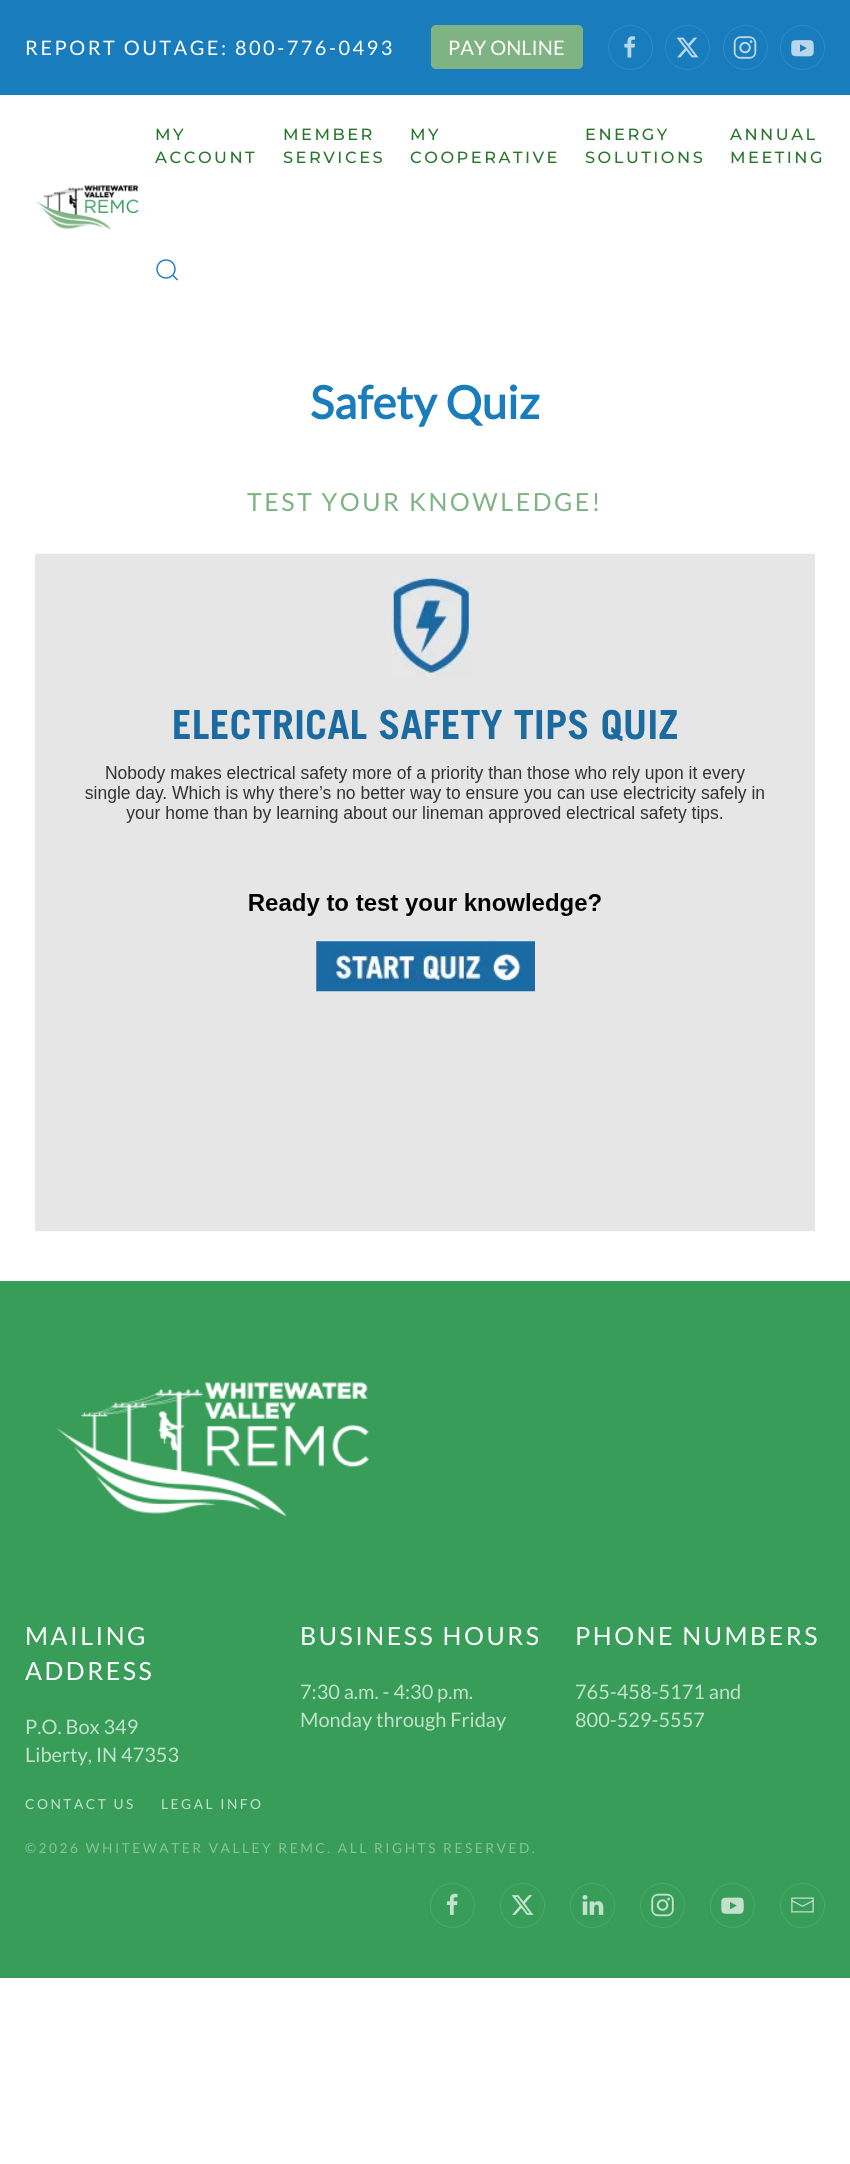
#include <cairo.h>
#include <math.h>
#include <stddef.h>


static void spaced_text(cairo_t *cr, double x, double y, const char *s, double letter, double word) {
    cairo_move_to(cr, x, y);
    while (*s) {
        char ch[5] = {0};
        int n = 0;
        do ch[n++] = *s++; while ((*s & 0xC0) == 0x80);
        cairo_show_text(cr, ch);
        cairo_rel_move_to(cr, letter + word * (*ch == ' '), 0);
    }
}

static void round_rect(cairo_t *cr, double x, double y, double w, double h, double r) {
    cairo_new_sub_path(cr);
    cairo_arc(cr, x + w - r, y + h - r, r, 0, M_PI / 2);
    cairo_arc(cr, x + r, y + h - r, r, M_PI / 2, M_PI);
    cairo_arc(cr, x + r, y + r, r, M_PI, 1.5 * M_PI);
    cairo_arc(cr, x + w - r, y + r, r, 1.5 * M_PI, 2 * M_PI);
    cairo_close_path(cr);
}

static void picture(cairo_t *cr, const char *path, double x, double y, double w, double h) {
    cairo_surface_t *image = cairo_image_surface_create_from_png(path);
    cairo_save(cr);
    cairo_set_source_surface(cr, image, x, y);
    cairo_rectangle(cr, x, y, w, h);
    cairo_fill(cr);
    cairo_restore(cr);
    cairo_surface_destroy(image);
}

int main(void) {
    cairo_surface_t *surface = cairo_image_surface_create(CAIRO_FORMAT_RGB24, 850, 2164);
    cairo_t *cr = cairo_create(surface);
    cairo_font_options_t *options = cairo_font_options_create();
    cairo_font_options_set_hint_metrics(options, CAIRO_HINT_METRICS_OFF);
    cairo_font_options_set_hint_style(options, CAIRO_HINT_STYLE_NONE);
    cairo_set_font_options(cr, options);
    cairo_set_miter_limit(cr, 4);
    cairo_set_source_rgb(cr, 1, 1, 1);
    cairo_paint(cr);
    cairo_set_source_rgb(cr, 0.094, 0.486, 0.741);
    cairo_rectangle(cr, 0, 0, 850, 95);
    cairo_fill(cr);
    cairo_select_font_face(cr, "Lato", CAIRO_FONT_SLANT_NORMAL, CAIRO_FONT_WEIGHT_NORMAL);
    cairo_set_font_size(cr, 20);
    cairo_set_source_rgb(cr, 1, 1, 1);
    spaced_text(cr, 25, 55, "REPORT OUTAGE: 800-776-0493", 2.5, 0);
    cairo_set_source_rgb(cr, 0.498, 0.702, 0.514);
    round_rect(cr, 431, 25, 152, 44, 5);
    cairo_fill(cr);
    cairo_set_source_rgb(cr, 1, 1, 1);
    cairo_move_to(cr, 448, 55);
    cairo_show_text(cr, "PAY ONLINE");
    cairo_new_path(cr);
    cairo_arc(cr, 630.5, 47.5, 22, 0, 2 * M_PI);
    cairo_set_source_rgb(cr, 0.184, 0.537, 0.769);
    cairo_set_line_width(cr, 1);
    cairo_stroke(cr);
    picture(cr, "img1.png", 624, 36, 11, 22);
    cairo_arc(cr, 687.5, 47.5, 22, 0, 2 * M_PI);
    cairo_stroke(cr);
    picture(cr, "img2.png", 676, 37, 23, 21);
    cairo_arc(cr, 745.5, 47.5, 22, 0, 2 * M_PI);
    cairo_stroke(cr);
    picture(cr, "img3.png", 733, 36, 24, 23);
    cairo_arc(cr, 802.5, 47.5, 22, 0, 2 * M_PI);
    cairo_stroke(cr);
    picture(cr, "img4.png", 791, 40, 23, 17);
    cairo_select_font_face(cr, "Montserrat Thin", CAIRO_FONT_SLANT_NORMAL, CAIRO_FONT_WEIGHT_NORMAL);
    cairo_set_font_size(cr, 16.25);
    cairo_set_source_rgb(cr, 0.157, 0.463, 0.18);
    spaced_text(cr, 155, 140, "MY", 2.5, 0);
    spaced_text(cr, 155, 163, "ACCOUNT", 2.5, 0);
    spaced_text(cr, 283, 140, "MEMBER", 2.5, 0);
    spaced_text(cr, 283, 163, "SERVICES", 2.5, 0);
    spaced_text(cr, 410, 140, "MY", 2.5, 0);
    spaced_text(cr, 410, 163, "COOPERATIVE", 2.5, 0);
    spaced_text(cr, 585, 140, "ENERGY", 2.5, 0);
    spaced_text(cr, 585, 163, "SOLUTIONS", 2.5, 0);
    spaced_text(cr, 730, 140, "ANNUAL", 2.5, 0);
    spaced_text(cr, 730, 163, "MEETING", 2.5, 0);
    cairo_new_path(cr);
    cairo_arc(cr, 166, 269, 9, 0, 2 * M_PI);
    cairo_set_source_rgb(cr, 0.094, 0.486, 0.741);
    cairo_set_line_width(cr, 1.4);
    cairo_stroke(cr);
    cairo_new_path(cr);
    cairo_move_to(cr, 172.5, 275);
    cairo_line_to(cr, 177.5, 280);
    cairo_close_path(cr);
    cairo_stroke(cr);
    picture(cr, "img5.png", 35, 185, 104, 45);
    cairo_select_font_face(cr, "Lato", CAIRO_FONT_SLANT_NORMAL, CAIRO_FONT_WEIGHT_BOLD);
    cairo_set_font_size(cr, 45.5);
    cairo_move_to(cr, 310, 419);
    cairo_show_text(cr, "Safety Quiz");
    cairo_select_font_face(cr, "Lato", CAIRO_FONT_SLANT_NORMAL, CAIRO_FONT_WEIGHT_NORMAL);
    cairo_set_font_size(cr, 25);
    cairo_set_source_rgb(cr, 0.498, 0.702, 0.514);
    spaced_text(cr, 247, 511, "TEST YOUR KNOWLEDGE!", 2.5, 0);
    picture(cr, "img6.png", 35, 553, 780, 679);
    cairo_set_source_rgb(cr, 0.216, 0.616, 0.349);
    cairo_rectangle(cr, 0, 1281, 850, 697);
    cairo_fill(cr);
    picture(cr, "img7.png", 56, 1382, 313, 135);
    cairo_set_source_rgb(cr, 1, 1, 1);
    spaced_text(cr, 25, 1645, "MAILING", 2.5, 0);
    spaced_text(cr, 25, 1680, "ADDRESS", 2.5, 0);
    cairo_set_font_size(cr, 20);
    cairo_set_source_rgb(cr, 0.765, 0.886, 0.804);
    cairo_move_to(cr, 25, 1734);
    cairo_show_text(cr, "P.O. Box 349");
    cairo_move_to(cr, 25, 1762);
    cairo_show_text(cr, "Liberty, IN 47353");
    cairo_set_font_size(cr, 25);
    cairo_set_source_rgb(cr, 1, 1, 1);
    spaced_text(cr, 300, 1645, "BUSINESS HOURS", 2.5, 0);
    cairo_set_font_size(cr, 20);
    cairo_set_source_rgb(cr, 0.765, 0.886, 0.804);
    cairo_move_to(cr, 300, 1699);
    cairo_show_text(cr, "7:30 a.m. - 4:30 p.m.");
    cairo_move_to(cr, 300, 1727);
    cairo_show_text(cr, "Monday through Friday");
    cairo_set_font_size(cr, 25);
    cairo_set_source_rgb(cr, 1, 1, 1);
    spaced_text(cr, 575, 1645, "PHONE NUMBERS", 2.5, 0);
    cairo_set_font_size(cr, 20);
    cairo_set_source_rgb(cr, 0.765, 0.886, 0.804);
    cairo_move_to(cr, 575, 1699);
    cairo_show_text(cr, "765-458-5171 and");
    cairo_move_to(cr, 575, 1727);
    cairo_show_text(cr, "800-529-5557");
    cairo_set_font_size(cr, 13.75);
    spaced_text(cr, 25, 1809, "CONTACT US", 2.5, 0);
    spaced_text(cr, 161, 1809, "LEGAL INFO", 2.5, 0);
    cairo_set_source_rgb(cr, 0.529, 0.769, 0.608);
    spaced_text(cr, 25, 1853, "©2026 WHITEWATER VALLEY REMC. ALL RIGHTS RESERVED.", 2.5, 0);
    cairo_new_path(cr);
    cairo_arc(cr, 452.5, 1905.5, 22, 0, 2 * M_PI);
    cairo_set_source_rgb(cr, 0.294, 0.655, 0.416);
    cairo_set_line_width(cr, 1);
    cairo_stroke(cr);
    picture(cr, "img8.png", 446, 1893, 12, 22);
    cairo_arc(cr, 522.5, 1905.5, 22, 0, 2 * M_PI);
    cairo_stroke(cr);
    picture(cr, "img9.png", 511, 1895, 23, 20);
    cairo_arc(cr, 592.5, 1905.5, 22, 0, 2 * M_PI);
    cairo_stroke(cr);
    picture(cr, "img10.png", 582, 1895, 22, 20);
    cairo_arc(cr, 662.5, 1905.5, 22, 0, 2 * M_PI);
    cairo_stroke(cr);
    picture(cr, "img11.png", 651, 1893, 23, 24);
    cairo_arc(cr, 732.5, 1905.5, 22, 0, 2 * M_PI);
    cairo_stroke(cr);
    picture(cr, "img12.png", 721, 1897, 23, 17);
    cairo_arc(cr, 802.5, 1905.5, 22, 0, 2 * M_PI);
    cairo_stroke(cr);
    picture(cr, "img13.png", 791, 1897, 23, 16);
    cairo_surface_write_to_png(surface, "page.png");
    cairo_font_options_destroy(options);
    cairo_destroy(cr);
    cairo_surface_destroy(surface);
    return 0;
}
